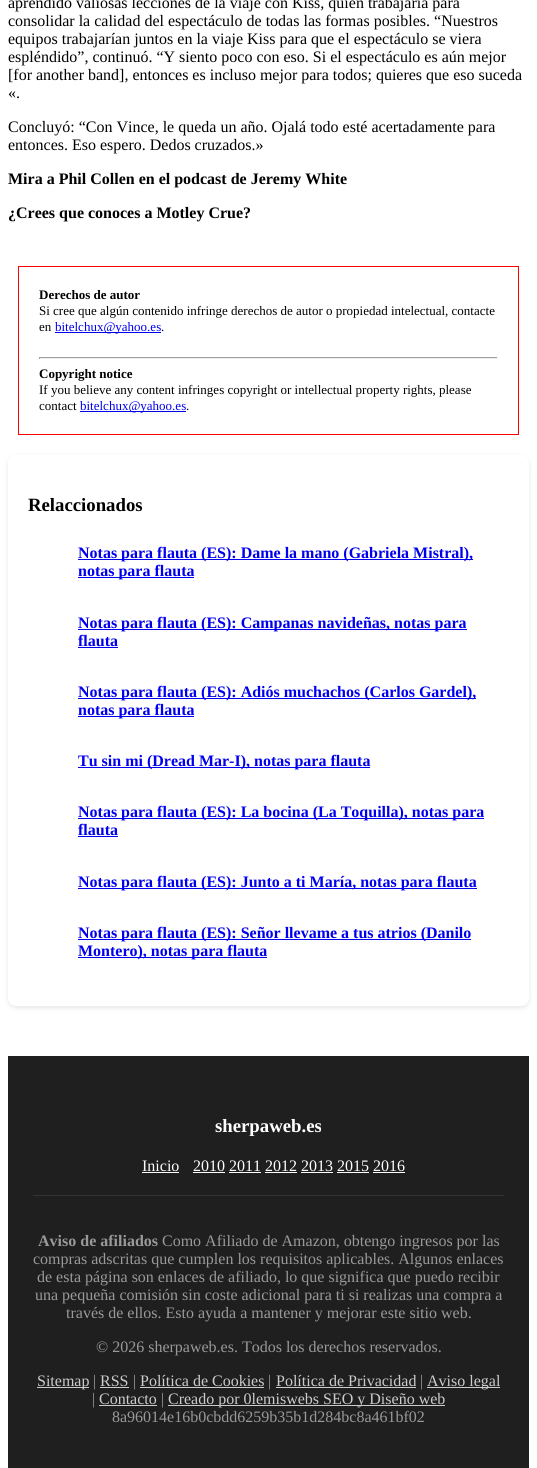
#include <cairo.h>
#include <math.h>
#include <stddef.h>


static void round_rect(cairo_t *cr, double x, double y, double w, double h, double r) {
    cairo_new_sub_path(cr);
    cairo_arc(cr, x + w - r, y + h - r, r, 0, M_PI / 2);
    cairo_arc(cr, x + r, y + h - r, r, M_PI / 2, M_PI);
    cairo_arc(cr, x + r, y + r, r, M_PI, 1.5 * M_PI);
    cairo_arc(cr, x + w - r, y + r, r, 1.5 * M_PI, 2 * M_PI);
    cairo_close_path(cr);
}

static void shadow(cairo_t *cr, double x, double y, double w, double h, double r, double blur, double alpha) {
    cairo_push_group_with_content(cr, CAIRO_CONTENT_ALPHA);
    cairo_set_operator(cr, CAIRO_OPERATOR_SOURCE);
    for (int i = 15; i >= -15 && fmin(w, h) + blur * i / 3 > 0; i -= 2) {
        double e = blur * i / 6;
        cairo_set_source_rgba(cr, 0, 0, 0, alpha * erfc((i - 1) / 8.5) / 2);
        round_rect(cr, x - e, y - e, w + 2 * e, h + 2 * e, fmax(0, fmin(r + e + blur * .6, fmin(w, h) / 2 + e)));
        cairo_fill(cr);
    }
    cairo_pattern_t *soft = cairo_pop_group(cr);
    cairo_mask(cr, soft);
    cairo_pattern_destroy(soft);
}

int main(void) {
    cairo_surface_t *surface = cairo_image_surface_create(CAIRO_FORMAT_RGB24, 537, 1468);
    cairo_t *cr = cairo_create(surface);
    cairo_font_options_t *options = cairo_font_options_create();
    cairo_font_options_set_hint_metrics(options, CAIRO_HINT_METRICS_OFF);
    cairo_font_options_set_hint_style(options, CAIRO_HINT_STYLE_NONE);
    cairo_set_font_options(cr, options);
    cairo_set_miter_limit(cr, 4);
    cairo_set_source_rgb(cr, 1, 1, 1);
    cairo_paint(cr);
    cairo_select_font_face(cr, "Liberation Serif", CAIRO_FONT_SLANT_NORMAL, CAIRO_FONT_WEIGHT_NORMAL);
    cairo_set_font_size(cr, 16);
    cairo_set_source_rgb(cr, 0, 0, 0);
    cairo_move_to(cr, 8, 8);
    cairo_show_text(cr, "aprendido valiosas lecciones de la viaje con Kiss, quien trabajaría para");
    cairo_move_to(cr, 8, 26);
    cairo_show_text(cr, "consolidar la calidad del espectáculo de todas las formas posibles. “Nuestros");
    cairo_move_to(cr, 8, 44);
    cairo_show_text(cr, "equipos trabajarían juntos en la viaje Kiss para que el espectáculo se viera");
    cairo_move_to(cr, 8, 62);
    cairo_show_text(cr, "espléndido”, continuó. “Y siento poco con eso. Si el espectáculo es aún mejor");
    cairo_move_to(cr, 8, 80);
    cairo_show_text(cr, "[for another band], entonces es incluso mejor para todos; quieres que eso suceda");
    cairo_move_to(cr, 8, 98);
    cairo_show_text(cr, "«.");
    cairo_move_to(cr, 8, 132);
    cairo_show_text(cr, "Concluyó: “Con Vince, le queda un año. Ojalá todo esté acertadamente para");
    cairo_move_to(cr, 8, 150);
    cairo_show_text(cr, "entonces. Eso espero. Dedos cruzados.»");
    cairo_select_font_face(cr, "Liberation Serif", CAIRO_FONT_SLANT_NORMAL, CAIRO_FONT_WEIGHT_BOLD);
    cairo_move_to(cr, 8, 184);
    cairo_show_text(cr, "Mira a Phil Collen en el podcast de Jeremy White");
    cairo_move_to(cr, 8, 218);
    cairo_show_text(cr, "¿Crees que conoces a Motley Crue?");
    cairo_rectangle(cr, 18.5, 266.5, 500, 168);
    cairo_set_source_rgb(cr, 1, 0, 0);
    cairo_set_line_width(cr, 1);
    cairo_stroke(cr);
    cairo_set_font_size(cr, 13);
    cairo_set_source_rgb(cr, 0, 0, 0);
    cairo_move_to(cr, 39, 299);
    cairo_show_text(cr, "Derechos de autor");
    cairo_select_font_face(cr, "Liberation Serif", CAIRO_FONT_SLANT_NORMAL, CAIRO_FONT_WEIGHT_NORMAL);
    cairo_move_to(cr, 39, 315);
    cairo_show_text(cr, "Si cree que algún contenido infringe derechos de autor o propiedad intelectual, contacte");
    cairo_move_to(cr, 39, 331);
    cairo_show_text(cr, "en");
    cairo_set_source_rgb(cr, 0, 0, 0.933);
    cairo_rectangle(cr, 55, 332, 106, 1);
    cairo_fill(cr);
    cairo_move_to(cr, 55, 331);
    cairo_show_text(cr, "bitelchux@yahoo.es");
    cairo_set_source_rgb(cr, 0, 0, 0);
    cairo_move_to(cr, 161, 331);
    cairo_show_text(cr, ".");
    cairo_set_source_rgb(cr, 0.624, 0.624, 0.624);
    cairo_rectangle(cr, 39, 357, 459, 1);
    cairo_fill(cr);
    cairo_set_source_rgb(cr, 0.933, 0.933, 0.933);
    cairo_rectangle(cr, 497, 357, 1, 2);
    cairo_fill(cr);
    cairo_rectangle(cr, 39, 358, 459, 1);
    cairo_fill(cr);
    cairo_set_source_rgb(cr, 0.624, 0.624, 0.624);
    cairo_rectangle(cr, 39, 357, 1, 2);
    cairo_fill(cr);
    cairo_select_font_face(cr, "Liberation Serif", CAIRO_FONT_SLANT_NORMAL, CAIRO_FONT_WEIGHT_BOLD);
    cairo_set_source_rgb(cr, 0, 0, 0);
    cairo_move_to(cr, 39, 378);
    cairo_show_text(cr, "Copyright notice");
    cairo_select_font_face(cr, "Liberation Serif", CAIRO_FONT_SLANT_NORMAL, CAIRO_FONT_WEIGHT_NORMAL);
    cairo_move_to(cr, 39, 394);
    cairo_show_text(cr, "If you believe any content infringes copyright or intellectual property rights, please");
    cairo_move_to(cr, 39, 410);
    cairo_show_text(cr, "contact");
    cairo_set_source_rgb(cr, 0, 0, 0.933);
    cairo_rectangle(cr, 80, 411, 106, 1);
    cairo_fill(cr);
    cairo_move_to(cr, 80, 410);
    cairo_show_text(cr, "bitelchux@yahoo.es");
    cairo_set_source_rgb(cr, 0, 0, 0);
    cairo_move_to(cr, 186, 410);
    cairo_show_text(cr, ".");
    cairo_set_source_rgb(cr, 0, 0, 0);
    shadow(cr, 8, 457, 521, 551, 8, 2.5, 0.1);
    cairo_set_source_rgb(cr, 1, 1, 1);
    round_rect(cr, 8, 455, 521, 551, 8);
    cairo_fill(cr);
    cairo_select_font_face(cr, "Liberation Serif", CAIRO_FONT_SLANT_NORMAL, CAIRO_FONT_WEIGHT_BOLD);
    cairo_set_font_size(cr, 18.75);
    cairo_set_source_rgb(cr, 0, 0, 0);
    cairo_move_to(cr, 28, 511);
    cairo_show_text(cr, "Relaccionados");
    cairo_set_source_rgb(cr, 0, 0, 0.933);
    cairo_rectangle(cr, 78, 559, 395, 1);
    cairo_fill(cr);
    cairo_set_font_size(cr, 16);
    cairo_move_to(cr, 78, 558);
    cairo_show_text(cr, "Notas para flauta (ES): Dame la mano (Gabriela Mistral),");
    cairo_rectangle(cr, 78, 577, 116, 1);
    cairo_fill(cr);
    cairo_move_to(cr, 78, 576);
    cairo_show_text(cr, "notas para flauta");
    cairo_rectangle(cr, 78, 629, 389, 1);
    cairo_fill(cr);
    cairo_move_to(cr, 78, 628);
    cairo_show_text(cr, "Notas para flauta (ES): Campanas navideñas, notas para");
    cairo_move_to(cr, 78, 646);
    cairo_show_text(cr, "flauta");
    cairo_rectangle(cr, 78, 647, 40, 1);
    cairo_fill(cr);
    cairo_rectangle(cr, 78, 698, 398, 1);
    cairo_fill(cr);
    cairo_move_to(cr, 78, 697);
    cairo_show_text(cr, "Notas para flauta (ES): Adiós muchachos (Carlos Gardel),");
    cairo_rectangle(cr, 78, 716, 116, 1);
    cairo_fill(cr);
    cairo_move_to(cr, 78, 715);
    cairo_show_text(cr, "notas para flauta");
    cairo_rectangle(cr, 78, 767, 292, 1);
    cairo_fill(cr);
    cairo_move_to(cr, 78, 766);
    cairo_show_text(cr, "Tu sin mi (Dread Mar-I), notas para flauta");
    cairo_rectangle(cr, 78, 818, 406, 1);
    cairo_fill(cr);
    cairo_move_to(cr, 78, 817);
    cairo_show_text(cr, "Notas para flauta (ES): La bocina (La Toquilla), notas para");
    cairo_move_to(cr, 78, 835);
    cairo_show_text(cr, "flauta");
    cairo_rectangle(cr, 78, 836, 40, 1);
    cairo_fill(cr);
    cairo_rectangle(cr, 78, 888, 399, 1);
    cairo_fill(cr);
    cairo_move_to(cr, 78, 887);
    cairo_show_text(cr, "Notas para flauta (ES): Junto a ti María, notas para flauta");
    cairo_rectangle(cr, 78, 939, 393, 1);
    cairo_fill(cr);
    cairo_move_to(cr, 78, 938);
    cairo_show_text(cr, "Notas para flauta (ES): Señor llevame a tus atrios (Danilo");
    cairo_rectangle(cr, 78, 957, 189, 1);
    cairo_fill(cr);
    cairo_move_to(cr, 78, 956);
    cairo_show_text(cr, "Montero), notas para flauta");
    cairo_set_source_rgb(cr, 0.122, 0.122, 0.122);
    cairo_rectangle(cr, 8, 1056, 521, 412);
    cairo_fill(cr);
    cairo_set_font_size(cr, 18.75);
    cairo_set_source_rgb(cr, 1, 1, 1);
    cairo_move_to(cr, 215, 1132);
    cairo_show_text(cr, "sherpaweb.es");
    cairo_select_font_face(cr, "Liberation Serif", CAIRO_FONT_SLANT_NORMAL, CAIRO_FONT_WEIGHT_NORMAL);
    cairo_set_font_size(cr, 16);
    cairo_move_to(cr, 142, 1171);
    cairo_show_text(cr, "Inicio");
    cairo_rectangle(cr, 142, 1172, 37, 1);
    cairo_fill(cr);
    cairo_move_to(cr, 193, 1171);
    cairo_show_text(cr, "2010 2011 2012 2013 2015 2016");
    cairo_rectangle(cr, 193, 1172, 32, 1);
    cairo_fill(cr);
    cairo_rectangle(cr, 229, 1172, 32, 1);
    cairo_fill(cr);
    cairo_rectangle(cr, 265, 1172, 32, 1);
    cairo_fill(cr);
    cairo_rectangle(cr, 301, 1172, 32, 1);
    cairo_fill(cr);
    cairo_rectangle(cr, 337, 1172, 32, 1);
    cairo_fill(cr);
    cairo_rectangle(cr, 373, 1172, 32, 1);
    cairo_fill(cr);
    cairo_set_source_rgb(cr, 0.2, 0.2, 0.2);
    cairo_rectangle(cr, 33, 1195, 471, 1);
    cairo_fill(cr);
    cairo_select_font_face(cr, "Liberation Serif", CAIRO_FONT_SLANT_NORMAL, CAIRO_FONT_WEIGHT_BOLD);
    cairo_set_source_rgb(cr, 0.6, 0.6, 0.6);
    cairo_move_to(cr, 38, 1246);
    cairo_show_text(cr, "Aviso de afiliados");
    cairo_select_font_face(cr, "Liberation Serif", CAIRO_FONT_SLANT_NORMAL, CAIRO_FONT_WEIGHT_NORMAL);
    cairo_move_to(cr, 162, 1246);
    cairo_show_text(cr, "Como Afiliado de Amazon, obtengo ingresos por las");
    cairo_move_to(cr, 33, 1264);
    cairo_show_text(cr, "compras adscritas que cumplen los requisitos aplicables. Algunos enlaces");
    cairo_move_to(cr, 37, 1282);
    cairo_show_text(cr, "de esta página son enlaces de afiliado, lo que significa que puedo recibir");
    cairo_move_to(cr, 35, 1300);
    cairo_show_text(cr, "una pequeña comisión sin coste adicional para ti si realizas una compra a");
    cairo_move_to(cr, 66, 1318);
    cairo_show_text(cr, "través de ellos. Esto ayuda a mantener y mejorar este sitio web.");
    cairo_move_to(cr, 96, 1352);
    cairo_show_text(cr, "© 2026 sherpaweb.es. Todos los derechos reservados.");
    cairo_set_source_rgb(cr, 0.8, 0.8, 0.8);
    cairo_rectangle(cr, 37, 1387, 52, 1);
    cairo_fill(cr);
    cairo_move_to(cr, 37, 1386);
    cairo_show_text(cr, "Sitemap");
    cairo_set_source_rgb(cr, 0.6, 0.6, 0.6);
    cairo_move_to(cr, 93, 1386);
    cairo_show_text(cr, "|");
    cairo_set_source_rgb(cr, 0.8, 0.8, 0.8);
    cairo_move_to(cr, 100, 1386);
    cairo_show_text(cr, "RSS");
    cairo_rectangle(cr, 100, 1387, 29, 1);
    cairo_fill(cr);
    cairo_set_source_rgb(cr, 0.6, 0.6, 0.6);
    cairo_move_to(cr, 133, 1386);
    cairo_show_text(cr, "|");
    cairo_set_source_rgb(cr, 0.8, 0.8, 0.8);
    cairo_move_to(cr, 140, 1386);
    cairo_show_text(cr, "Política de Cookies");
    cairo_rectangle(cr, 140, 1387, 124, 1);
    cairo_fill(cr);
    cairo_set_source_rgb(cr, 0.6, 0.6, 0.6);
    cairo_move_to(cr, 268, 1386);
    cairo_show_text(cr, "|");
    cairo_set_source_rgb(cr, 0.8, 0.8, 0.8);
    cairo_move_to(cr, 276, 1386);
    cairo_show_text(cr, "Política de Privacidad");
    cairo_rectangle(cr, 276, 1387, 140, 1);
    cairo_fill(cr);
    cairo_set_source_rgb(cr, 0.6, 0.6, 0.6);
    cairo_move_to(cr, 420, 1386);
    cairo_show_text(cr, "|");
    cairo_set_source_rgb(cr, 0.8, 0.8, 0.8);
    cairo_rectangle(cr, 427, 1387, 73, 1);
    cairo_fill(cr);
    cairo_move_to(cr, 427, 1386);
    cairo_show_text(cr, "Aviso legal");
    cairo_set_source_rgb(cr, 0.6, 0.6, 0.6);
    cairo_move_to(cr, 92, 1404);
    cairo_show_text(cr, "|");
    cairo_set_source_rgb(cr, 0.8, 0.8, 0.8);
    cairo_move_to(cr, 99, 1404);
    cairo_show_text(cr, "Contacto");
    cairo_rectangle(cr, 99, 1405, 58, 1);
    cairo_fill(cr);
    cairo_set_source_rgb(cr, 0.6, 0.6, 0.6);
    cairo_move_to(cr, 161, 1404);
    cairo_show_text(cr, "|");
    cairo_set_source_rgb(cr, 0.8, 0.8, 0.8);
    cairo_rectangle(cr, 168, 1405, 277, 1);
    cairo_fill(cr);
    cairo_move_to(cr, 168, 1404);
    cairo_show_text(cr, "Creado por 0lemiswebs SEO y Diseño web");
    cairo_set_source_rgb(cr, 0.6, 0.6, 0.6);
    cairo_move_to(cr, 112, 1422);
    cairo_show_text(cr, "8a96014e16b0cbdd6259b35b1d284bc8a461bf02");
    cairo_surface_write_to_png(surface, "page.png");
    cairo_font_options_destroy(options);
    cairo_destroy(cr);
    cairo_surface_destroy(surface);
    return 0;
}
